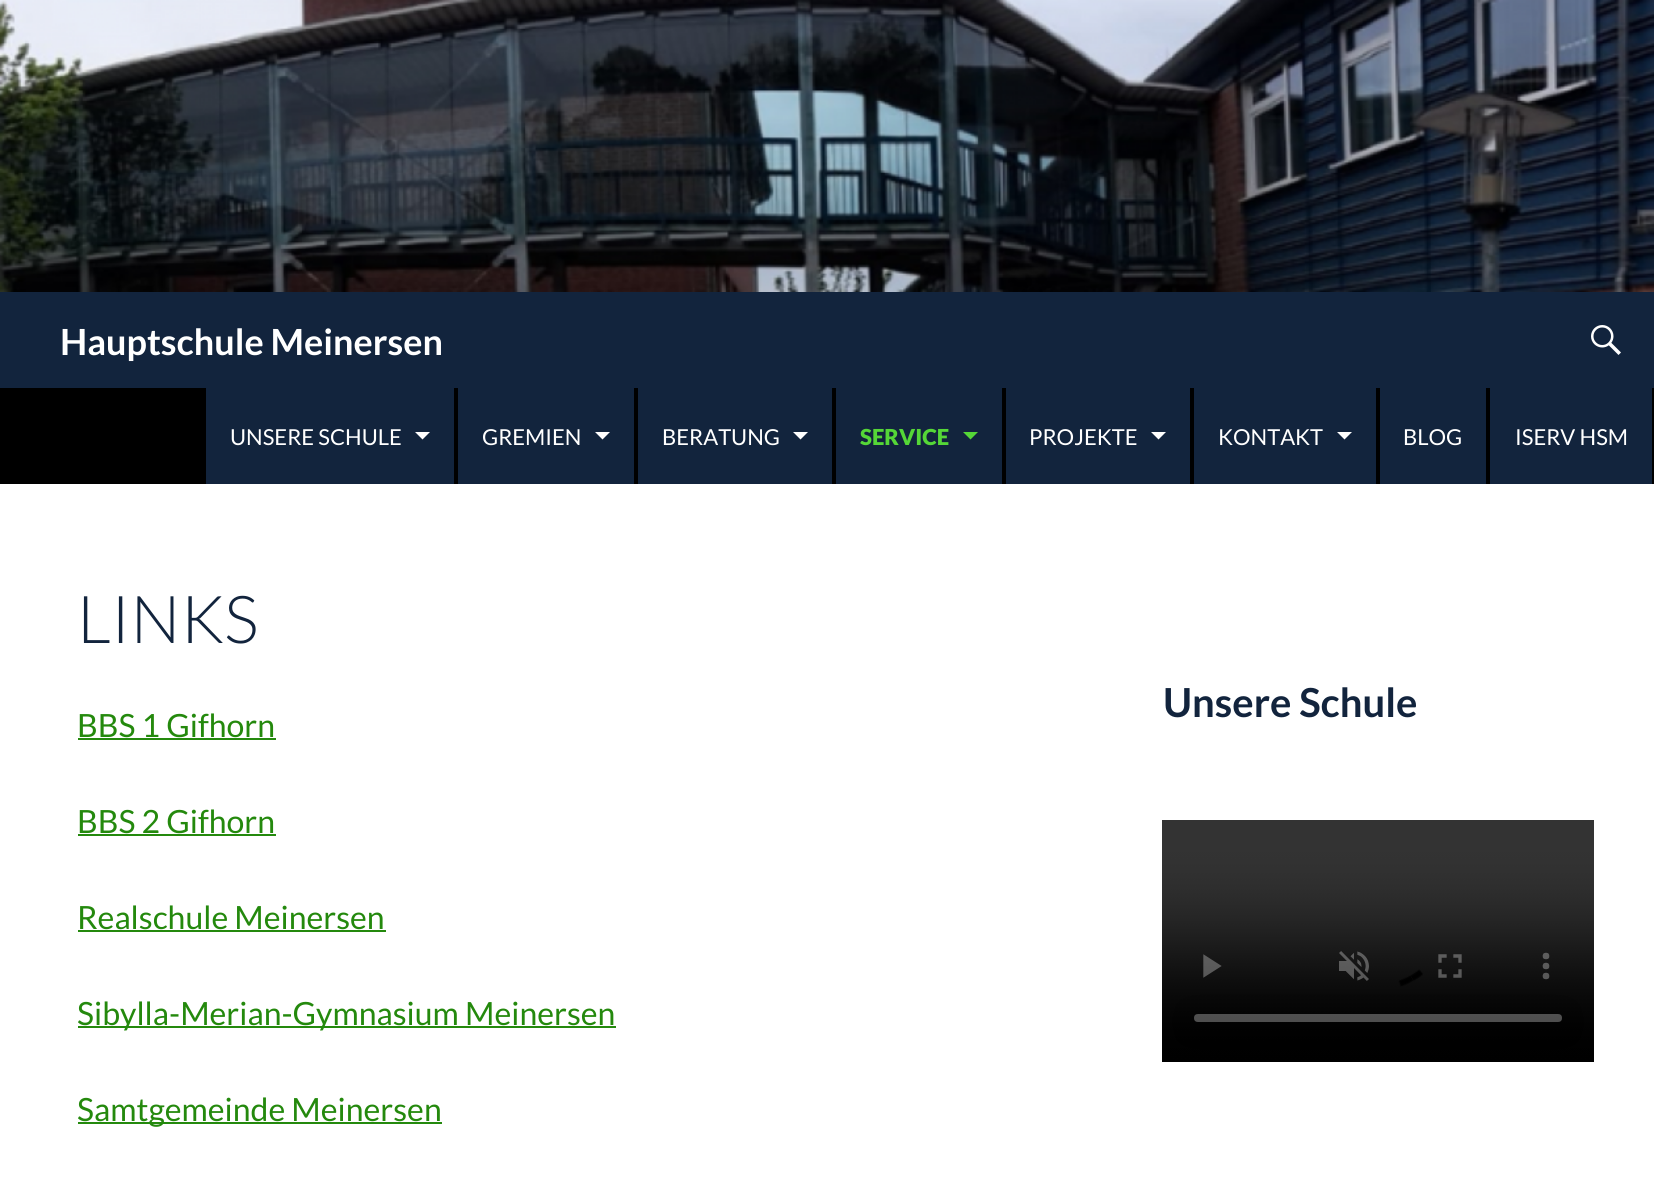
#include <cairo.h>
#include <math.h>
#include <stddef.h>


static void picture(cairo_t *cr, const char *path, double x, double y, double w, double h) {
    cairo_surface_t *image = cairo_image_surface_create_from_png(path);
    cairo_save(cr);
    cairo_set_source_surface(cr, image, x, y);
    cairo_rectangle(cr, x, y, w, h);
    cairo_fill(cr);
    cairo_restore(cr);
    cairo_surface_destroy(image);
}

int main(void) {
    cairo_surface_t *surface = cairo_image_surface_create(CAIRO_FORMAT_RGB24, 1654, 1187);
    cairo_t *cr = cairo_create(surface);
    cairo_font_options_t *options = cairo_font_options_create();
    cairo_font_options_set_hint_metrics(options, CAIRO_HINT_METRICS_OFF);
    cairo_font_options_set_hint_style(options, CAIRO_HINT_STYLE_NONE);
    cairo_set_font_options(cr, options);
    cairo_set_miter_limit(cr, 4);
    cairo_set_source_rgb(cr, 1, 1, 1);
    cairo_paint(cr);
    picture(cr, "img1.png", 0, 0, 1654, 292);
    cairo_set_source_rgb(cr, 0, 0, 0);
    cairo_rectangle(cr, 0, 388, 1654, 96);
    cairo_fill(cr);
    cairo_set_source_rgb(cr, 0.071, 0.141, 0.239);
    cairo_rectangle(cr, 0, 292, 1654, 96);
    cairo_fill(cr);
    cairo_select_font_face(cr, "Lato", CAIRO_FONT_SLANT_NORMAL, CAIRO_FONT_WEIGHT_BOLD);
    cairo_set_font_size(cr, 36);
    cairo_set_source_rgb(cr, 1, 1, 1);
    cairo_move_to(cr, 60, 355);
    cairo_show_text(cr, "Hauptschule Meinersen");
    picture(cr, "img2.png", 1591, 325, 30, 30);
    cairo_set_source_rgb(cr, 0.071, 0.141, 0.239);
    cairo_rectangle(cr, 206, 388, 248, 96);
    cairo_fill(cr);
    cairo_select_font_face(cr, "Lato", CAIRO_FONT_SLANT_NORMAL, CAIRO_FONT_WEIGHT_NORMAL);
    cairo_set_font_size(cr, 22);
    cairo_set_source_rgb(cr, 1, 1, 1);
    cairo_move_to(cr, 230, 445);
    cairo_show_text(cr, "UNSERE SCHULE");
    cairo_new_path(cr);
    cairo_move_to(cr, 415, 432);
    cairo_line_to(cr, 422.5, 439.5);
    cairo_line_to(cr, 430, 432);
    cairo_close_path(cr);
    cairo_fill(cr);
    cairo_set_source_rgb(cr, 0.071, 0.141, 0.239);
    cairo_rectangle(cr, 458, 388, 176, 96);
    cairo_fill(cr);
    cairo_set_source_rgb(cr, 1, 1, 1);
    cairo_move_to(cr, 482, 445);
    cairo_show_text(cr, "GREMIEN");
    cairo_new_path(cr);
    cairo_move_to(cr, 595, 432);
    cairo_line_to(cr, 602.5, 439.5);
    cairo_line_to(cr, 610, 432);
    cairo_close_path(cr);
    cairo_fill(cr);
    cairo_set_source_rgb(cr, 0.071, 0.141, 0.239);
    cairo_rectangle(cr, 638, 388, 194, 96);
    cairo_fill(cr);
    cairo_set_source_rgb(cr, 1, 1, 1);
    cairo_move_to(cr, 662, 445);
    cairo_show_text(cr, "BERATUNG");
    cairo_new_path(cr);
    cairo_move_to(cr, 793, 432);
    cairo_line_to(cr, 800.5, 439.5);
    cairo_line_to(cr, 808, 432);
    cairo_close_path(cr);
    cairo_fill(cr);
    cairo_set_source_rgb(cr, 0.071, 0.141, 0.239);
    cairo_rectangle(cr, 836, 388, 166, 96);
    cairo_fill(cr);
    cairo_select_font_face(cr, "Lato Black", CAIRO_FONT_SLANT_NORMAL, CAIRO_FONT_WEIGHT_NORMAL);
    cairo_set_source_rgb(cr, 0.333, 0.843, 0.216);
    cairo_move_to(cr, 860, 445);
    cairo_show_text(cr, "SERVICE");
    cairo_new_path(cr);
    cairo_move_to(cr, 963, 432);
    cairo_line_to(cr, 970.5, 439.5);
    cairo_line_to(cr, 978, 432);
    cairo_close_path(cr);
    cairo_fill(cr);
    cairo_set_source_rgb(cr, 0.071, 0.141, 0.239);
    cairo_rectangle(cr, 1006, 388, 184, 96);
    cairo_fill(cr);
    cairo_select_font_face(cr, "Lato", CAIRO_FONT_SLANT_NORMAL, CAIRO_FONT_WEIGHT_NORMAL);
    cairo_set_source_rgb(cr, 1, 1, 1);
    cairo_move_to(cr, 1029, 445);
    cairo_show_text(cr, "PROJEKTE");
    cairo_new_path(cr);
    cairo_move_to(cr, 1151, 432);
    cairo_line_to(cr, 1158.5, 439.5);
    cairo_line_to(cr, 1166, 432);
    cairo_close_path(cr);
    cairo_fill(cr);
    cairo_set_source_rgb(cr, 0.071, 0.141, 0.239);
    cairo_rectangle(cr, 1194, 388, 182, 96);
    cairo_fill(cr);
    cairo_set_source_rgb(cr, 1, 1, 1);
    cairo_move_to(cr, 1218, 445);
    cairo_show_text(cr, "KONTAKT");
    cairo_new_path(cr);
    cairo_move_to(cr, 1337, 432);
    cairo_line_to(cr, 1344.5, 439.5);
    cairo_line_to(cr, 1352, 432);
    cairo_close_path(cr);
    cairo_fill(cr);
    cairo_set_source_rgb(cr, 0.071, 0.141, 0.239);
    cairo_rectangle(cr, 1380, 388, 106, 96);
    cairo_fill(cr);
    cairo_set_source_rgb(cr, 1, 1, 1);
    cairo_move_to(cr, 1403, 445);
    cairo_show_text(cr, "BLOG");
    cairo_set_source_rgb(cr, 0.071, 0.141, 0.239);
    cairo_rectangle(cr, 1490, 388, 162, 96);
    cairo_fill(cr);
    cairo_set_source_rgb(cr, 1, 1, 1);
    cairo_move_to(cr, 1515, 445);
    cairo_show_text(cr, "ISERV HSM");
    cairo_select_font_face(cr, "Lato Light", CAIRO_FONT_SLANT_NORMAL, CAIRO_FONT_WEIGHT_NORMAL);
    cairo_set_font_size(cr, 66);
    cairo_set_source_rgb(cr, 0.071, 0.141, 0.239);
    cairo_move_to(cr, 77, 643);
    cairo_show_text(cr, "LINKS");
    cairo_select_font_face(cr, "Lato", CAIRO_FONT_SLANT_NORMAL, CAIRO_FONT_WEIGHT_NORMAL);
    cairo_set_font_size(cr, 32);
    cairo_set_source_rgb(cr, 0.141, 0.537, 0.051);
    cairo_move_to(cr, 77, 737);
    cairo_show_text(cr, "BBS 1 Gifhorn");
    cairo_rectangle(cr, 78, 738, 198, 2);
    cairo_fill(cr);
    cairo_move_to(cr, 77, 833);
    cairo_show_text(cr, "BBS 2 Gifhorn");
    cairo_rectangle(cr, 78, 834, 198, 2);
    cairo_fill(cr);
    cairo_move_to(cr, 77, 929);
    cairo_show_text(cr, "Realschule Meinersen");
    cairo_rectangle(cr, 78, 930, 308, 2);
    cairo_fill(cr);
    cairo_rectangle(cr, 78, 1026, 538, 2);
    cairo_fill(cr);
    cairo_move_to(cr, 77, 1025);
    cairo_show_text(cr, "Sibylla-Merian-Gymnasium Meinersen");
    cairo_rectangle(cr, 78, 1122, 364, 2);
    cairo_fill(cr);
    cairo_move_to(cr, 77, 1121);
    cairo_show_text(cr, "Samtgemeinde Meinersen");
    cairo_select_font_face(cr, "Lato", CAIRO_FONT_SLANT_NORMAL, CAIRO_FONT_WEIGHT_BOLD);
    cairo_set_font_size(cr, 40);
    cairo_set_source_rgb(cr, 0.071, 0.141, 0.239);
    cairo_move_to(cr, 1163, 717);
    cairo_show_text(cr, "Unsere Schule");
    picture(cr, "img3.png", 1162, 820, 432, 242);
    cairo_surface_write_to_png(surface, "page.png");
    cairo_font_options_destroy(options);
    cairo_destroy(cr);
    cairo_surface_destroy(surface);
    return 0;
}
